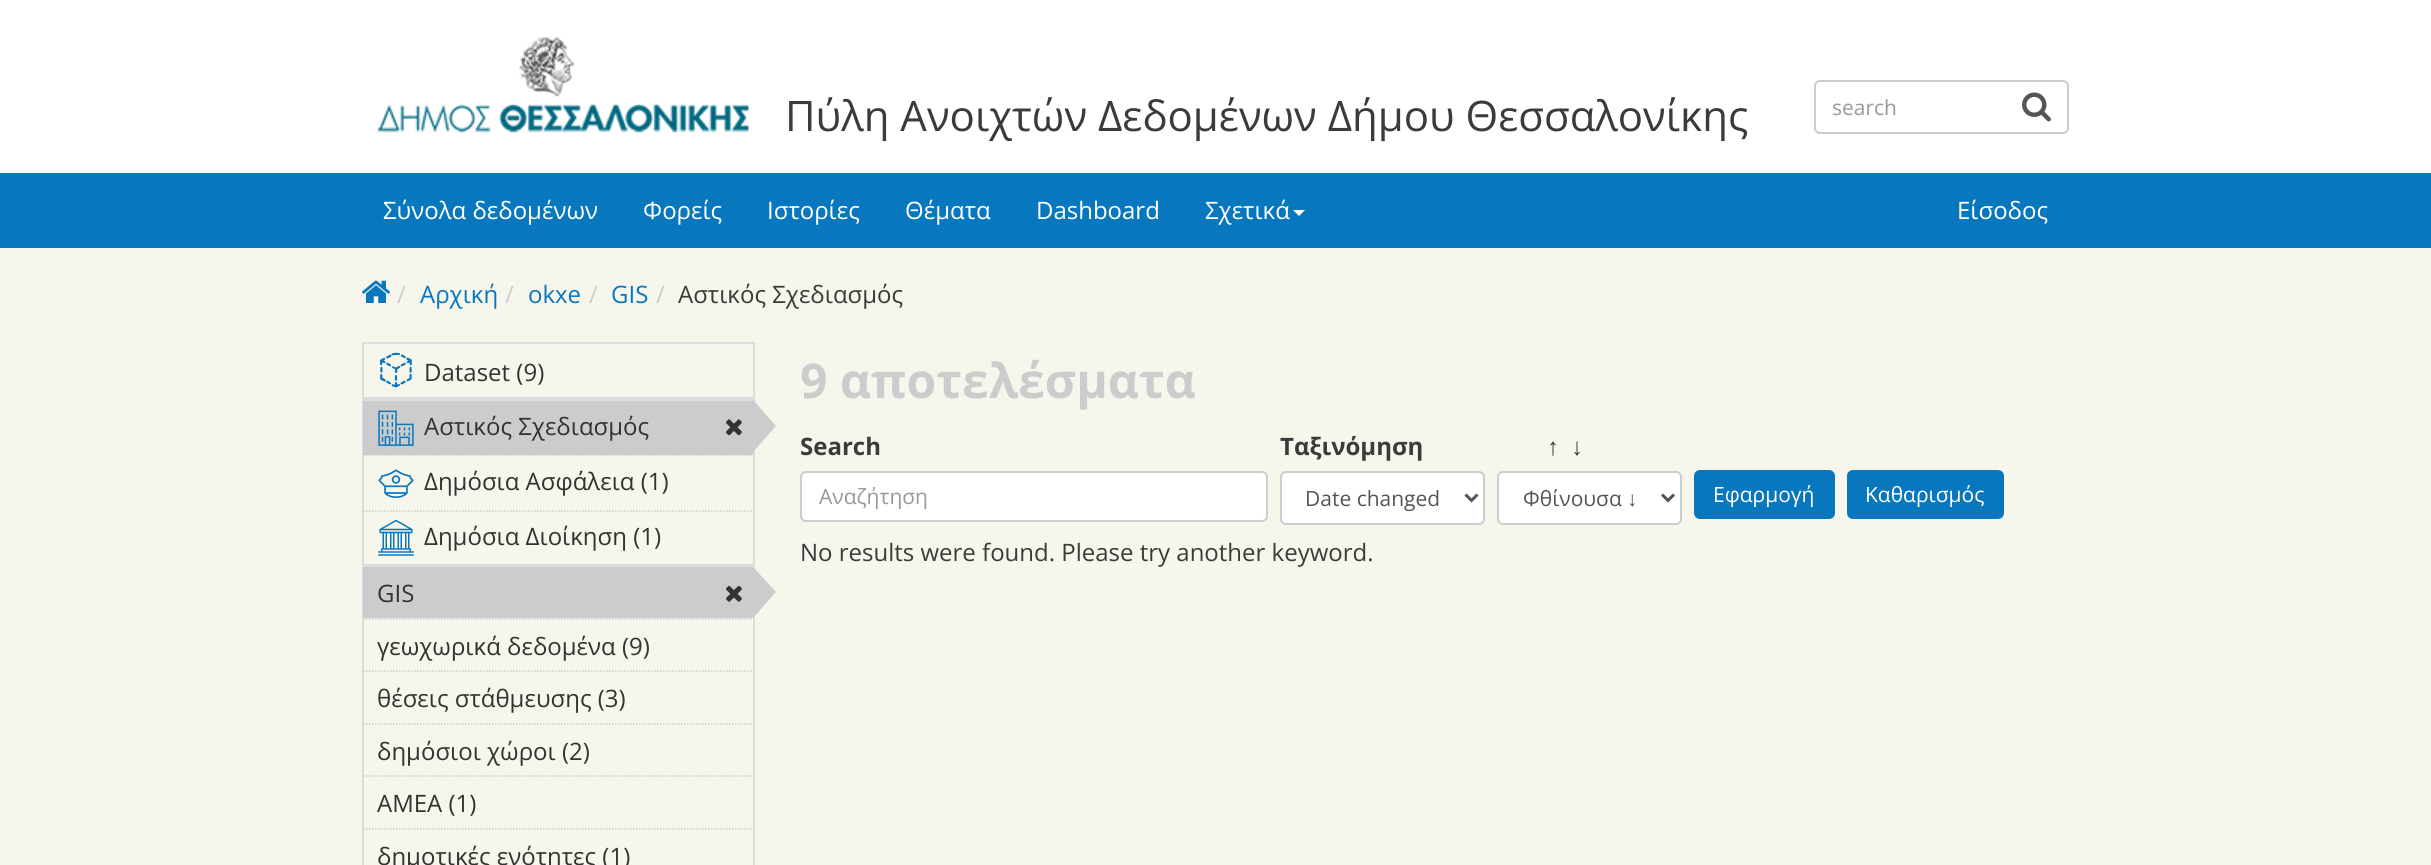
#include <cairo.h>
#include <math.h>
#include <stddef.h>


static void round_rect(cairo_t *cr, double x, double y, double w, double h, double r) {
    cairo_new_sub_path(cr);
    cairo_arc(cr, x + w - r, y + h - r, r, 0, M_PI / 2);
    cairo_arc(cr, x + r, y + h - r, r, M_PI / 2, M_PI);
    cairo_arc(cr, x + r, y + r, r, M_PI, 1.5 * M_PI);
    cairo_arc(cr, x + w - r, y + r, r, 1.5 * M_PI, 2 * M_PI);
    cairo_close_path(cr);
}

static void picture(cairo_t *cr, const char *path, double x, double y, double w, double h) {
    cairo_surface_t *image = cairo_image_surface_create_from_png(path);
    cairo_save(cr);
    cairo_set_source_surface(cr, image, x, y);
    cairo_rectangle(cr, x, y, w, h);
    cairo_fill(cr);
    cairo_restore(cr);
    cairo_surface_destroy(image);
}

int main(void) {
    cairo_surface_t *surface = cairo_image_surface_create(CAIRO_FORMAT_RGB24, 2431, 865);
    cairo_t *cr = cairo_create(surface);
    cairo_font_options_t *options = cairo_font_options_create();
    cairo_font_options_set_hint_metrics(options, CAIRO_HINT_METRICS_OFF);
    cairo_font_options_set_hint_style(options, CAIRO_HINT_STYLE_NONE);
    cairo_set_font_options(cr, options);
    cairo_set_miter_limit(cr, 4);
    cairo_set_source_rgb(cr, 1, 1, 1);
    cairo_paint(cr);
    picture(cr, "img1.png", 377, 37, 372, 96);
    cairo_select_font_face(cr, "Open Sans", CAIRO_FONT_SLANT_NORMAL, CAIRO_FONT_WEIGHT_NORMAL);
    cairo_set_font_size(cr, 42);
    cairo_set_source_rgb(cr, 0.231, 0.231, 0.231);
    cairo_move_to(cr, 785, 131);
    cairo_show_text(cr, "Πύλη Ανοιχτών Δεδομένων Δήμου Θεσσαλονίκης");
    round_rect(cr, 1815, 81, 253, 52, 5);
    cairo_set_source_rgb(cr, 0.804, 0.804, 0.804);
    cairo_stroke(cr);
    cairo_set_font_size(cr, 21);
    cairo_set_source_rgb(cr, 0.6, 0.6, 0.6);
    cairo_move_to(cr, 1832, 115);
    cairo_show_text(cr, "search");
    picture(cr, "img2.png", 2022, 92, 29, 30);
    cairo_set_source_rgb(cr, 0.039, 0.467, 0.741);
    cairo_rectangle(cr, 0, 173, 2431, 75);
    cairo_fill(cr);
    cairo_set_font_size(cr, 24);
    cairo_set_source_rgb(cr, 1, 1, 1);
    cairo_move_to(cr, 383, 219);
    cairo_show_text(cr, "Σύνολα δεδομένων");
    cairo_move_to(cr, 643, 219);
    cairo_show_text(cr, "Φορείς");
    cairo_move_to(cr, 767, 219);
    cairo_show_text(cr, "Ιστορίες");
    cairo_move_to(cr, 905, 219);
    cairo_show_text(cr, "Θέματα");
    cairo_move_to(cr, 1036, 219);
    cairo_show_text(cr, "Dashboard");
    cairo_move_to(cr, 1205, 219);
    cairo_show_text(cr, "Σχετικά");
    cairo_new_path(cr);
    cairo_move_to(cr, 1293, 210);
    cairo_line_to(cr, 1305, 210);
    cairo_line_to(cr, 1299, 216);
    cairo_close_path(cr);
    cairo_fill(cr);
    cairo_move_to(cr, 1957, 219);
    cairo_show_text(cr, "Είσοδος");
    cairo_set_source_rgb(cr, 0.961, 0.961, 0.925);
    cairo_rectangle(cr, 0, 248, 2431, 617);
    cairo_fill(cr);
    picture(cr, "img3.png", 362, 280, 28, 23);
    cairo_set_source_rgb(cr, 0.8, 0.8, 0.8);
    cairo_move_to(cr, 397, 303);
    cairo_show_text(cr, "/");
    cairo_set_source_rgb(cr, 0.039, 0.467, 0.741);
    cairo_move_to(cr, 420, 303);
    cairo_show_text(cr, "Αρχική");
    cairo_set_source_rgb(cr, 0.8, 0.8, 0.8);
    cairo_move_to(cr, 505, 303);
    cairo_show_text(cr, "/");
    cairo_set_source_rgb(cr, 0.039, 0.467, 0.741);
    cairo_move_to(cr, 528, 303);
    cairo_show_text(cr, "okxe");
    cairo_set_source_rgb(cr, 0.8, 0.8, 0.8);
    cairo_move_to(cr, 589, 303);
    cairo_show_text(cr, "/");
    cairo_set_source_rgb(cr, 0.039, 0.467, 0.741);
    cairo_move_to(cr, 611, 303);
    cairo_show_text(cr, "GIS");
    cairo_set_source_rgb(cr, 0.8, 0.8, 0.8);
    cairo_move_to(cr, 656, 303);
    cairo_show_text(cr, "/");
    cairo_set_source_rgb(cr, 0.231, 0.231, 0.231);
    cairo_move_to(cr, 678, 303);
    cairo_show_text(cr, "Αστικός Σχεδιασμός");
    cairo_rectangle(cr, 363, 343, 391, 55);
    cairo_set_source_rgb(cr, 0.867, 0.867, 0.867);
    cairo_stroke(cr);
    picture(cr, "img4.png", 380, 352, 32, 36);
    cairo_set_source_rgb(cr, 0.2, 0.2, 0.2);
    cairo_move_to(cr, 424, 381);
    cairo_show_text(cr, "Dataset (9)");
    cairo_rectangle(cr, 363, 400, 391, 165);
    cairo_set_source_rgb(cr, 0.867, 0.867, 0.867);
    cairo_stroke(cr);
    cairo_new_path(cr);
    cairo_move_to(cr, 363, 455);
    cairo_line_to(cr, 753, 455);
    cairo_set_source_rgb(cr, 0.8, 0.8, 0.8);
    cairo_set_line_width(cr, 1.5);
    cairo_set_dash(cr, (double[]){1.5, 1.5}, 2, 0);
    cairo_stroke(cr);
    cairo_rectangle(cr, 363, 401, 390, 54);
    cairo_fill(cr);
    picture(cr, "img5.png", 378, 410, 36, 36);
    cairo_set_source_rgb(cr, 0.2, 0.2, 0.2);
    cairo_move_to(cr, 424, 435);
    cairo_show_text(cr, "Αστικός Σχεδιασμός");
    picture(cr, "img6.png", 726, 419, 16, 17);
    cairo_set_source_rgb(cr, 0.8, 0.8, 0.8);
    cairo_new_path(cr);
    cairo_move_to(cr, 753, 452);
    cairo_line_to(cr, 753, 400);
    cairo_line_to(cr, 776, 426);
    cairo_close_path(cr);
    cairo_fill(cr);
    cairo_new_path(cr);
    cairo_move_to(cr, 363, 511);
    cairo_line_to(cr, 753, 511);
    cairo_stroke(cr);
    picture(cr, "img7.png", 378, 469, 36, 29);
    cairo_set_source_rgb(cr, 0.2, 0.2, 0.2);
    cairo_move_to(cr, 424, 490);
    cairo_show_text(cr, "Δημόσια Ασφάλεια (1)");
    picture(cr, "img8.png", 378, 519, 36, 37);
    cairo_move_to(cr, 424, 545);
    cairo_show_text(cr, "Δημόσια Διοίκηση (1)");
    cairo_rectangle(cr, 363, 567, 391, 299);
    cairo_set_source_rgb(cr, 0.867, 0.867, 0.867);
    cairo_set_line_width(cr, 2);
    cairo_set_dash(cr, NULL, 0, 0);
    cairo_stroke(cr);
    cairo_new_path(cr);
    cairo_move_to(cr, 363, 619);
    cairo_line_to(cr, 753, 619);
    cairo_set_source_rgb(cr, 0.8, 0.8, 0.8);
    cairo_set_line_width(cr, 1.5);
    cairo_set_dash(cr, (double[]){1.5, 1.5}, 2, 0);
    cairo_stroke(cr);
    cairo_rectangle(cr, 363, 567, 390, 51);
    cairo_fill(cr);
    cairo_set_source_rgb(cr, 0.2, 0.2, 0.2);
    cairo_move_to(cr, 377, 602);
    cairo_show_text(cr, "GIS");
    picture(cr, "img9.png", 726, 585, 16, 17);
    cairo_set_source_rgb(cr, 0.8, 0.8, 0.8);
    cairo_new_path(cr);
    cairo_move_to(cr, 753, 618);
    cairo_line_to(cr, 753, 567);
    cairo_line_to(cr, 776, 592);
    cairo_close_path(cr);
    cairo_fill(cr);
    cairo_new_path(cr);
    cairo_move_to(cr, 363, 671);
    cairo_line_to(cr, 753, 671);
    cairo_stroke(cr);
    cairo_set_source_rgb(cr, 0.2, 0.2, 0.2);
    cairo_move_to(cr, 377, 655);
    cairo_show_text(cr, "γεωχωρικά δεδομένα (9)");
    cairo_new_path(cr);
    cairo_move_to(cr, 363, 724);
    cairo_line_to(cr, 753, 724);
    cairo_set_source_rgb(cr, 0.8, 0.8, 0.8);
    cairo_stroke(cr);
    cairo_set_source_rgb(cr, 0.2, 0.2, 0.2);
    cairo_move_to(cr, 377, 707);
    cairo_show_text(cr, "θέσεις στάθμευσης (3)");
    cairo_new_path(cr);
    cairo_move_to(cr, 363, 776);
    cairo_line_to(cr, 753, 776);
    cairo_set_source_rgb(cr, 0.8, 0.8, 0.8);
    cairo_stroke(cr);
    cairo_set_source_rgb(cr, 0.2, 0.2, 0.2);
    cairo_move_to(cr, 377, 760);
    cairo_show_text(cr, "δημόσιοι χώροι (2)");
    cairo_new_path(cr);
    cairo_move_to(cr, 363, 829);
    cairo_line_to(cr, 753, 829);
    cairo_set_source_rgb(cr, 0.8, 0.8, 0.8);
    cairo_stroke(cr);
    cairo_set_source_rgb(cr, 0.2, 0.2, 0.2);
    cairo_move_to(cr, 377, 812);
    cairo_show_text(cr, "ΑΜΕΑ (1)");
    cairo_move_to(cr, 377, 865);
    cairo_show_text(cr, "δημοτικές ενότητες (1)");
    cairo_select_font_face(cr, "Open Sans", CAIRO_FONT_SLANT_NORMAL, CAIRO_FONT_WEIGHT_BOLD);
    cairo_set_font_size(cr, 48);
    cairo_set_source_rgb(cr, 0.8, 0.8, 0.8);
    cairo_move_to(cr, 800, 398);
    cairo_show_text(cr, "9 αποτελέσματα");
    cairo_set_font_size(cr, 24);
    cairo_set_source_rgb(cr, 0.231, 0.231, 0.231);
    cairo_move_to(cr, 800, 455);
    cairo_show_text(cr, "Search");
    cairo_set_source_rgb(cr, 1, 1, 1);
    round_rect(cr, 801, 472, 466, 49, 5);
    cairo_fill_preserve(cr);
    cairo_set_source_rgb(cr, 0.804, 0.804, 0.804);
    cairo_set_line_width(cr, 2);
    cairo_set_dash(cr, NULL, 0, 0);
    cairo_stroke(cr);
    cairo_select_font_face(cr, "Open Sans", CAIRO_FONT_SLANT_NORMAL, CAIRO_FONT_WEIGHT_NORMAL);
    cairo_set_font_size(cr, 21);
    cairo_set_source_rgb(cr, 0.6, 0.6, 0.6);
    cairo_move_to(cr, 819, 504);
    cairo_show_text(cr, "Αναζήτηση");
    cairo_select_font_face(cr, "Open Sans", CAIRO_FONT_SLANT_NORMAL, CAIRO_FONT_WEIGHT_BOLD);
    cairo_set_font_size(cr, 24);
    cairo_set_source_rgb(cr, 0.231, 0.231, 0.231);
    cairo_move_to(cr, 1280, 455);
    cairo_show_text(cr, "Ταξινόμηση");
    cairo_set_source_rgb(cr, 1, 1, 1);
    round_rect(cr, 1281, 472, 203, 52, 5);
    cairo_fill_preserve(cr);
    cairo_set_source_rgb(cr, 0.804, 0.804, 0.804);
    cairo_stroke(cr);
    cairo_new_path(cr);
    cairo_move_to(cr, 1465.5, 494.5);
    cairo_line_to(cr, 1471.5, 500.5);
    cairo_line_to(cr, 1477.5, 494.5);
    cairo_set_source_rgb(cr, 0.333, 0.333, 0.333);
    cairo_set_line_width(cr, 3);
    cairo_stroke(cr);
    cairo_select_font_face(cr, "Open Sans", CAIRO_FONT_SLANT_NORMAL, CAIRO_FONT_WEIGHT_NORMAL);
    cairo_set_font_size(cr, 21);
    cairo_move_to(cr, 1305, 506);
    cairo_show_text(cr, "Date changed");
    cairo_select_font_face(cr, "Liberation Sans", CAIRO_FONT_SLANT_NORMAL, CAIRO_FONT_WEIGHT_BOLD);
    cairo_set_font_size(cr, 24);
    cairo_set_source_rgb(cr, 0.231, 0.231, 0.231);
    cairo_move_to(cr, 1547, 455);
    cairo_show_text(cr, "↑");
    cairo_move_to(cr, 1571, 455);
    cairo_show_text(cr, "↓");
    cairo_set_source_rgb(cr, 1, 1, 1);
    round_rect(cr, 1498, 472, 183, 52, 5);
    cairo_fill_preserve(cr);
    cairo_set_source_rgb(cr, 0.804, 0.804, 0.804);
    cairo_set_line_width(cr, 2);
    cairo_stroke(cr);
    cairo_new_path(cr);
    cairo_move_to(cr, 1662, 494.5);
    cairo_line_to(cr, 1668, 500.5);
    cairo_line_to(cr, 1674, 494.5);
    cairo_set_source_rgb(cr, 0.333, 0.333, 0.333);
    cairo_set_line_width(cr, 3);
    cairo_stroke(cr);
    cairo_select_font_face(cr, "Open Sans", CAIRO_FONT_SLANT_NORMAL, CAIRO_FONT_WEIGHT_NORMAL);
    cairo_set_font_size(cr, 21);
    cairo_move_to(cr, 1523, 506);
    cairo_show_text(cr, "Φθίνουσα");
    cairo_select_font_face(cr, "Liberation Sans", CAIRO_FONT_SLANT_NORMAL, CAIRO_FONT_WEIGHT_NORMAL);
    cairo_move_to(cr, 1627, 506);
    cairo_show_text(cr, "↓");
    cairo_set_source_rgb(cr, 0.039, 0.467, 0.741);
    round_rect(cr, 1695, 471, 139, 47, 5);
    cairo_fill_preserve(cr);
    cairo_set_line_width(cr, 2);
    cairo_stroke(cr);
    cairo_select_font_face(cr, "Open Sans", CAIRO_FONT_SLANT_NORMAL, CAIRO_FONT_WEIGHT_NORMAL);
    cairo_set_source_rgb(cr, 1, 1, 1);
    cairo_move_to(cr, 1713, 502);
    cairo_show_text(cr, "Εφαρμογή");
    cairo_set_source_rgb(cr, 0.039, 0.467, 0.741);
    round_rect(cr, 1848, 471, 155, 47, 5);
    cairo_fill_preserve(cr);
    cairo_stroke(cr);
    cairo_set_source_rgb(cr, 1, 1, 1);
    cairo_move_to(cr, 1865, 502);
    cairo_show_text(cr, "Καθαρισμός");
    cairo_set_font_size(cr, 24);
    cairo_set_source_rgb(cr, 0.231, 0.231, 0.231);
    cairo_move_to(cr, 800, 561);
    cairo_show_text(cr, "No results were found. Please try another keyword.");
    cairo_surface_write_to_png(surface, "page.png");
    cairo_font_options_destroy(options);
    cairo_destroy(cr);
    cairo_surface_destroy(surface);
    return 0;
}
